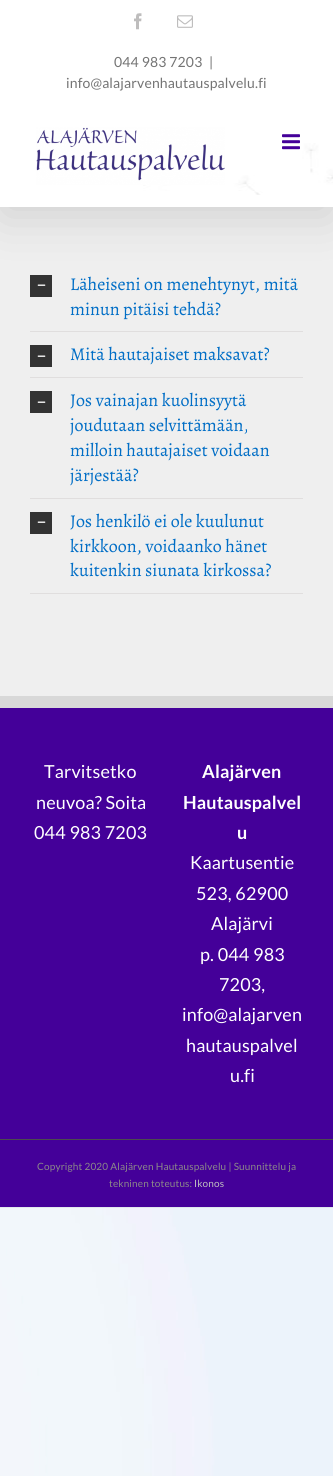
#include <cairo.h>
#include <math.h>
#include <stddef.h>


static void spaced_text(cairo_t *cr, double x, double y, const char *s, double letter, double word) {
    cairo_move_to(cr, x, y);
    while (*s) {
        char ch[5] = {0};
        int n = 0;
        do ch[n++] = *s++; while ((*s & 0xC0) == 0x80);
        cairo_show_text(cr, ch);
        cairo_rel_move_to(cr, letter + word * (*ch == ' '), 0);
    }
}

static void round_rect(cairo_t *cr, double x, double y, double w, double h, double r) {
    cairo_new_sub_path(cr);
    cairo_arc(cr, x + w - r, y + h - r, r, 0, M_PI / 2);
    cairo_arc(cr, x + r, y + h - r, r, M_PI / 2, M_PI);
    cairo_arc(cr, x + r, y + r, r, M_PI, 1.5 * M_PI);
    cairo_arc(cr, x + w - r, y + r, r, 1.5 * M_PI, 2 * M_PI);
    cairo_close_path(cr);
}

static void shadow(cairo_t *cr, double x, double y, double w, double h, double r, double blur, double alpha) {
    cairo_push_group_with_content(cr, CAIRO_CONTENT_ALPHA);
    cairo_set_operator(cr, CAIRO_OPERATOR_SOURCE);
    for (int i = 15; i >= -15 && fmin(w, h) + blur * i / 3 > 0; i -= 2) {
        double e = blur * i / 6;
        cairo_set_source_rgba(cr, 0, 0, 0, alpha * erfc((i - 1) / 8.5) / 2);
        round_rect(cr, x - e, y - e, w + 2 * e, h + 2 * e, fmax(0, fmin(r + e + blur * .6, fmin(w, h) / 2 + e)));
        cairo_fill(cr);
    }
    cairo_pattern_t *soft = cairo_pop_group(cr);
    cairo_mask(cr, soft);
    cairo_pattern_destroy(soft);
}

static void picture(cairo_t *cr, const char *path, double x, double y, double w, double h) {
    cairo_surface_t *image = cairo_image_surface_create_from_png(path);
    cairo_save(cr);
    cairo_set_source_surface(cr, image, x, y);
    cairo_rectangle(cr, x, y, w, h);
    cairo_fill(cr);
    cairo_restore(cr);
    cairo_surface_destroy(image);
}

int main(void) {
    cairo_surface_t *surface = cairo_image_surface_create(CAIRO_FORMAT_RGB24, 333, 1476);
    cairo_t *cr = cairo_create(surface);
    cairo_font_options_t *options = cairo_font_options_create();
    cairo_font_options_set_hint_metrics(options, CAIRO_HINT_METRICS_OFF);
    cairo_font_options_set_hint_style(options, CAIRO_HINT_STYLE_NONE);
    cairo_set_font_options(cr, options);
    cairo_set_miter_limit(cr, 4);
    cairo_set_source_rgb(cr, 1, 1, 1);
    cairo_paint(cr);
    picture(cr, "img1.png", 0, 1207, 333, 269);
    cairo_set_source_rgb(cr, 0.937, 0.937, 0.937);
    cairo_rectangle(cr, 0, 207, 333, 489);
    cairo_fill(cr);
    cairo_set_source_rgb(cr, 0.2, 0.2, 0.2);
    cairo_rectangle(cr, 30, 275, 22, 22);
    cairo_fill(cr);
    picture(cr, "img7.png", 37, 284, 9, 2);
    cairo_set_source_rgb(cr, 0, 0, 0);
    shadow(cr, 2, 12, 329, 203, 0, 25, 0.14);
    cairo_set_source_rgb(cr, 1, 1, 1);
    cairo_rectangle(cr, 0, 0, 333, 207);
    cairo_fill(cr);
    picture(cr, "img2.png", 134, 13, 8, 17);
    picture(cr, "img3.png", 177, 15, 16, 13);
    cairo_select_font_face(cr, "Lato", CAIRO_FONT_SLANT_NORMAL, CAIRO_FONT_WEIGHT_NORMAL);
    cairo_set_font_size(cr, 14);
    cairo_set_source_rgb(cr, 0.455, 0.455, 0.455);
    spaced_text(cr, 114, 67, "044 983 7203", 0.15, 0);
    spaced_text(cr, 209, 67, "|", 0.15, 0);
    spaced_text(cr, 66, 88, "info@alajarvenhautauspalvelu.fi", 0.15, 0);
    picture(cr, "img4.png", 143, 143, 190, 52);
    picture(cr, "img5.png", 36, 127, 189, 58);
    picture(cr, "img6.png", 282, 134, 18, 16);
    cairo_set_source_rgb(cr, 0.878, 0.871, 0.871);
    cairo_rectangle(cr, 30, 331, 273, 1);
    cairo_fill(cr);
    cairo_select_font_face(cr, "Alegreya", CAIRO_FONT_SLANT_NORMAL, CAIRO_FONT_WEIGHT_NORMAL);
    cairo_set_font_size(cr, 18);
    cairo_set_source_rgb(cr, 0.004, 0.431, 0.776);
    cairo_move_to(cr, 70, 290);
    cairo_show_text(cr, "Läheiseni on menehtynyt, mitä");
    cairo_move_to(cr, 70, 315);
    cairo_show_text(cr, "minun pitäisi tehdä?");
    cairo_set_source_rgb(cr, 0.878, 0.871, 0.871);
    cairo_rectangle(cr, 30, 377, 273, 1);
    cairo_fill(cr);
    cairo_set_source_rgb(cr, 0.2, 0.2, 0.2);
    cairo_rectangle(cr, 30, 345, 22, 22);
    cairo_fill(cr);
    picture(cr, "img7.png", 37, 355, 9, 2);
    cairo_set_source_rgb(cr, 0.004, 0.431, 0.776);
    cairo_move_to(cr, 70, 360);
    cairo_show_text(cr, "Mitä hautajaiset maksavat?");
    cairo_set_source_rgb(cr, 0.878, 0.871, 0.871);
    cairo_rectangle(cr, 30, 498, 273, 1);
    cairo_fill(cr);
    cairo_set_source_rgb(cr, 0.2, 0.2, 0.2);
    cairo_rectangle(cr, 30, 391, 22, 22);
    cairo_fill(cr);
    picture(cr, "img7.png", 37, 401, 9, 2);
    cairo_set_source_rgb(cr, 0.004, 0.431, 0.776);
    cairo_move_to(cr, 70, 406);
    cairo_show_text(cr, "Jos vainajan kuolinsyytä");
    cairo_move_to(cr, 70, 431);
    cairo_show_text(cr, "joudutaan selvittämään,");
    cairo_move_to(cr, 70, 456);
    cairo_show_text(cr, "milloin hautajaiset voidaan");
    cairo_move_to(cr, 70, 481);
    cairo_show_text(cr, "järjestää?");
    cairo_set_source_rgb(cr, 0.878, 0.871, 0.871);
    cairo_rectangle(cr, 30, 593, 273, 1);
    cairo_fill(cr);
    cairo_set_source_rgb(cr, 0.2, 0.2, 0.2);
    cairo_rectangle(cr, 30, 512, 22, 22);
    cairo_fill(cr);
    picture(cr, "img7.png", 37, 521, 9, 2);
    cairo_set_source_rgb(cr, 0.004, 0.431, 0.776);
    cairo_move_to(cr, 70, 527);
    cairo_show_text(cr, "Jos henkilö ei ole kuulunut");
    cairo_move_to(cr, 70, 552);
    cairo_show_text(cr, "kirkkoon, voidaanko hänet");
    cairo_move_to(cr, 70, 576);
    cairo_show_text(cr, "kuitenkin siunata kirkossa?");
    cairo_set_source_rgb(cr, 0.267, 0, 0.6);
    cairo_rectangle(cr, 0, 708, 333, 431);
    cairo_fill(cr);
    cairo_set_source_rgb(cr, 0.847, 0.847, 0.847);
    cairo_rectangle(cr, 0, 696, 333, 12);
    cairo_fill(cr);
    cairo_select_font_face(cr, "Lato", CAIRO_FONT_SLANT_NORMAL, CAIRO_FONT_WEIGHT_NORMAL);
    cairo_set_source_rgb(cr, 1, 1, 1);
    spaced_text(cr, 44, 778, "Tarvitsetko", 0.15, 0);
    spaced_text(cr, 36, 809, "neuvoa? Soita", 0.15, 0);
    spaced_text(cr, 34, 839, "044 983 7203", 0.15, 0);
    cairo_select_font_face(cr, "Lato", CAIRO_FONT_SLANT_NORMAL, CAIRO_FONT_WEIGHT_BOLD);
    spaced_text(cr, 202, 778, "Alajärven", 0.15, 0);
    spaced_text(cr, 183, 809, "Hautauspalvel", 0.15, 0);
    spaced_text(cr, 237, 839, "u", 0.15, 0);
    cairo_select_font_face(cr, "Lato", CAIRO_FONT_SLANT_NORMAL, CAIRO_FONT_WEIGHT_NORMAL);
    spaced_text(cr, 190, 869, "Kaartusentie", 0.15, 0);
    spaced_text(cr, 196, 900, "523, 62900", 0.15, 0);
    spaced_text(cr, 211, 930, "Alajärvi", 0.15, 0);
    spaced_text(cr, 200, 961, "p. 044 983", 0.15, 0);
    spaced_text(cr, 219, 991, "7203,", 0.15, 0);
    spaced_text(cr, 182, 1021, "info@alajarven", 0.15, 0);
    spaced_text(cr, 186, 1052, "hautauspalvel", 0.15, 0);
    spaced_text(cr, 230, 1082, "u.fi", 0.15, 0);
    cairo_set_source_rgb(cr, 0.267, 0, 0.6);
    cairo_rectangle(cr, 0, 1140, 333, 67);
    cairo_fill(cr);
    cairo_set_source_rgb(cr, 0.294, 0.298, 0.302);
    cairo_rectangle(cr, 0, 1139, 333, 1);
    cairo_fill(cr);
    cairo_set_font_size(cr, 10);
    cairo_set_source_rgb(cr, 0.549, 0.537, 0.537);
    spaced_text(cr, 37, 1170, "Copyright 2020 Alajärven Hautauspalvelu | Suunnittelu ja", 0.15, 0);
    spaced_text(cr, 109, 1187, "tekninen toteutus:", 0.15, 0);
    cairo_set_source_rgb(cr, 0.749, 0.749, 0.749);
    spaced_text(cr, 194, 1187, "Ikonos", 0.15, 0);
    cairo_surface_write_to_png(surface, "page.png");
    cairo_font_options_destroy(options);
    cairo_destroy(cr);
    cairo_surface_destroy(surface);
    return 0;
}
